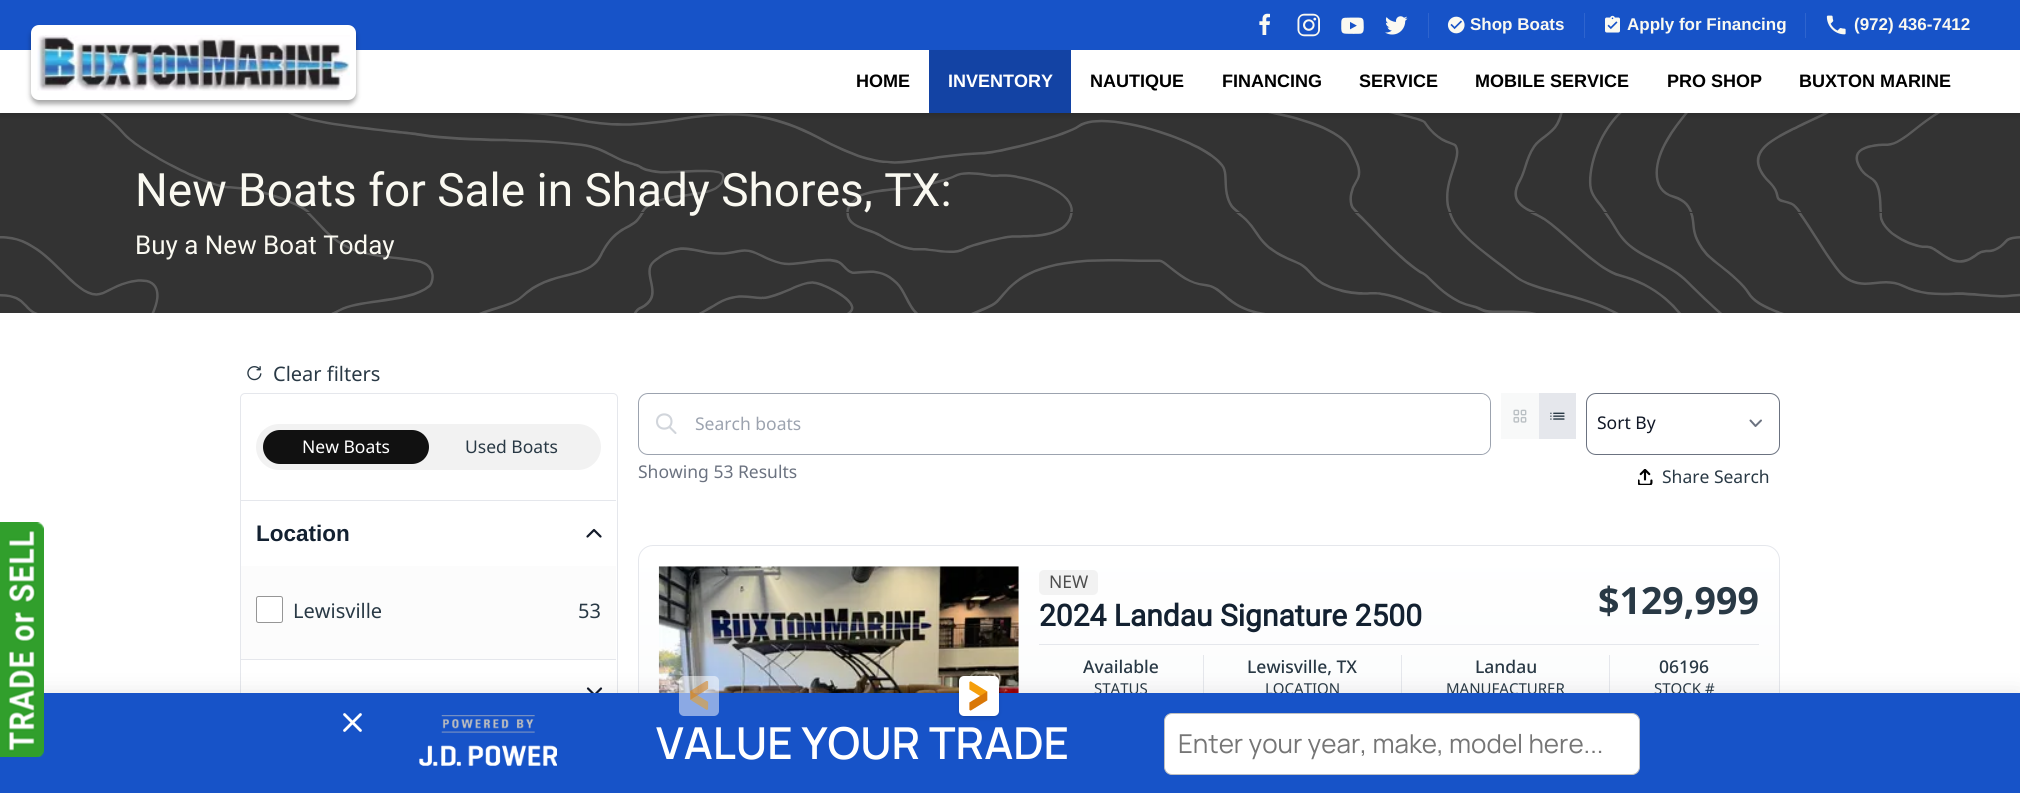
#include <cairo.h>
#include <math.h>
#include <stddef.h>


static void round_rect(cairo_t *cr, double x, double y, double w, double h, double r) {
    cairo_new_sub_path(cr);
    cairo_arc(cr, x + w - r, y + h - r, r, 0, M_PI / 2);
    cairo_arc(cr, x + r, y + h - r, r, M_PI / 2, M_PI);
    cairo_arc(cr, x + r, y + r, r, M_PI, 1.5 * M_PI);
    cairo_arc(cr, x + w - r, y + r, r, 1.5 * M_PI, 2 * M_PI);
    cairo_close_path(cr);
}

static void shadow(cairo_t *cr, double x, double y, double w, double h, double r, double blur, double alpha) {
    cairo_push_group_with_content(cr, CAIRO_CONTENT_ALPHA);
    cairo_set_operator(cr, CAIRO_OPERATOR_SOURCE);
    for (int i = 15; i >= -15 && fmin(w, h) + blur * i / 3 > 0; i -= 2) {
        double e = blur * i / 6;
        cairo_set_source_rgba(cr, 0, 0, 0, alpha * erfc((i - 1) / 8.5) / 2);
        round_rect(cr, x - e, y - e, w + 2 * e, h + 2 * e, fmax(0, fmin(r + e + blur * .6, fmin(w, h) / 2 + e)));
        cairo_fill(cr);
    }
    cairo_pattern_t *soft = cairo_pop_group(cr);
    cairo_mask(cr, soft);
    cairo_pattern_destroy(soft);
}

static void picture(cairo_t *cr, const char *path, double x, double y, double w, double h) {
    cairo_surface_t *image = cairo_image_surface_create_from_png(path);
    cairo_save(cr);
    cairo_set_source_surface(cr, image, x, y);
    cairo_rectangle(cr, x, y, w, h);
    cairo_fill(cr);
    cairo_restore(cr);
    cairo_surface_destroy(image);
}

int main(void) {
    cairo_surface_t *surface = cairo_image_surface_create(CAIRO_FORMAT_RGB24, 2020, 793);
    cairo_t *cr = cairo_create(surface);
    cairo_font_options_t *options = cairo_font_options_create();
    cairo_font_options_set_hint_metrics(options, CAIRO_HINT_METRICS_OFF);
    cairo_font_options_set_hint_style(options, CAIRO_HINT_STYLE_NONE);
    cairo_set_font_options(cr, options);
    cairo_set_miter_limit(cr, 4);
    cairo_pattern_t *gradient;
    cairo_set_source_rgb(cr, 1, 1, 1);
    cairo_paint(cr);
    round_rect(cr, 240.5, 393.5, 377, 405, 4.5);
    cairo_set_source_rgb(cr, 0.898, 0.906, 0.922);
    cairo_set_line_width(cr, 1);
    cairo_stroke(cr);
    cairo_new_path(cr);
    cairo_move_to(cr, 588, 688.5);
    cairo_line_to(cr, 594.5, 695);
    cairo_line_to(cr, 601, 688.5);
    cairo_set_source_rgb(cr, 0.075, 0.102, 0.161);
    cairo_set_line_width(cr, 2.2);
    cairo_set_line_cap(cr, CAIRO_LINE_CAP_ROUND);
    cairo_set_line_join(cr, CAIRO_LINE_JOIN_ROUND);
    cairo_stroke(cr);
    cairo_save(cr);
    round_rect(cr, 638, 545, 1142, 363, 15);
    cairo_clip(cr);
    gradient = cairo_pattern_create_linear(1209, 546, 1209, 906);
    cairo_pattern_add_color_stop_rgba(gradient, 0, 1, 1, 1, 1);
    cairo_pattern_add_color_stop_rgba(gradient, 0.75, 0.976, 0.98, 0.984, 1);
    cairo_pattern_add_color_stop_rgba(gradient, 1, 0.953, 0.957, 0.965, 1);
    cairo_set_source(cr, gradient);
    cairo_pattern_destroy(gradient);
    cairo_rectangle(cr, 638, 546, 1142, 147);
    cairo_fill(cr);
    cairo_restore(cr);
    round_rect(cr, 638.5, 545.5, 1141, 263, 14.5);
    cairo_set_source_rgb(cr, 0.898, 0.906, 0.922);
    cairo_set_line_width(cr, 1);
    cairo_set_line_cap(cr, CAIRO_LINE_CAP_BUTT);
    cairo_set_line_join(cr, CAIRO_LINE_JOIN_MITER);
    cairo_stroke(cr);
    picture(cr, "img15.png", 658, 566, 361, 127);
    cairo_rectangle(cr, 1203, 655, 1, 45);
    cairo_fill(cr);
    cairo_rectangle(cr, 1401, 655, 1, 45);
    cairo_fill(cr);
    cairo_rectangle(cr, 1609, 655, 1, 45);
    cairo_fill(cr);
    cairo_set_source_rgb(cr, 0, 0, 0);
    shadow(cr, 0, 700, 2020, 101, 0, 12.5, 0.19);
    cairo_select_font_face(cr, "Noto Sans", CAIRO_FONT_SLANT_NORMAL, CAIRO_FONT_WEIGHT_NORMAL);
    cairo_set_font_size(cr, 15);
    cairo_set_source_rgb(cr, 0.161, 0.224, 0.271);
    cairo_move_to(cr, 1094, 694);
    cairo_show_text(cr, "STATUS");
    cairo_move_to(cr, 1265, 694);
    cairo_show_text(cr, "LOCATION");
    cairo_move_to(cr, 1446, 694);
    cairo_show_text(cr, "MANUFACTURER");
    cairo_move_to(cr, 1654, 694);
    cairo_show_text(cr, "STOCK #");
    cairo_set_source_rgb(cr, 0.09, 0.325, 0.784);
    cairo_rectangle(cr, 0, 693, 2020, 100);
    cairo_fill(cr);
    picture(cr, "img1.png", 0, 522, 44, 235);
    cairo_rectangle(cr, 0, 0, 2020, 50);
    cairo_fill(cr);
    picture(cr, "img2.png", 1259, 13, 11, 22);
    picture(cr, "img3.png", 1297, 13, 23, 24);
    picture(cr, "img4.png", 1341, 17, 23, 17);
    picture(cr, "img5.png", 1385, 16, 23, 19);
    cairo_set_source_rgb(cr, 0.18, 0.392, 0.808);
    cairo_rectangle(cr, 1428, 13, 1, 25);
    cairo_fill(cr);
    picture(cr, "img6.png", 1447, 16, 18, 18);
    cairo_select_font_face(cr, "Liberation Sans", CAIRO_FONT_SLANT_NORMAL, CAIRO_FONT_WEIGHT_BOLD);
    cairo_set_font_size(cr, 17);
    cairo_set_source_rgb(cr, 0.98, 0.976, 0.945);
    cairo_move_to(cr, 1470, 30);
    cairo_show_text(cr, "Shop Boats");
    cairo_set_source_rgb(cr, 0.18, 0.392, 0.808);
    cairo_rectangle(cr, 1584, 13, 1, 25);
    cairo_fill(cr);
    picture(cr, "img7.png", 1605, 15, 15, 18);
    cairo_set_source_rgb(cr, 0.98, 0.976, 0.945);
    cairo_move_to(cr, 1627, 30);
    cairo_show_text(cr, "Apply for Financing");
    cairo_set_source_rgb(cr, 0.18, 0.392, 0.808);
    cairo_rectangle(cr, 1805, 13, 1, 25);
    cairo_fill(cr);
    picture(cr, "img8.png", 1826, 15, 20, 20);
    cairo_set_source_rgb(cr, 0.98, 0.976, 0.945);
    cairo_move_to(cr, 1854, 30);
    cairo_show_text(cr, "(972) 436-7412");
    cairo_set_source_rgb(cr, 0.2, 0.2, 0.2);
    cairo_rectangle(cr, 0, 113, 2020, 200);
    cairo_fill(cr);
    picture(cr, "img10.png", 0, 113, 2020, 200);
    cairo_set_source_rgb(cr, 0, 0, 0);
    shadow(cr, 0, 54, 2020, 62, 0, 2.5, 0.15);
    cairo_set_source_rgb(cr, 1, 1, 1);
    cairo_rectangle(cr, 0, 50, 2020, 63);
    cairo_fill(cr);
    cairo_set_source_rgb(cr, 0, 0, 0);
    shadow(cr, 31, 29, 325, 75, 8, 2.5, 0.35);
    cairo_set_source_rgb(cr, 1, 1, 1);
    round_rect(cr, 31, 25, 325, 75, 8);
    cairo_fill(cr);
    picture(cr, "img9.png", 37, 35, 313, 56);
    cairo_set_font_size(cr, 18);
    cairo_set_source_rgb(cr, 0, 0, 0);
    cairo_move_to(cr, 856, 87);
    cairo_show_text(cr, "HOME");
    cairo_set_source_rgb(cr, 0.075, 0.263, 0.643);
    cairo_rectangle(cr, 929, 50, 142, 63);
    cairo_fill(cr);
    cairo_set_source_rgb(cr, 1, 1, 1);
    cairo_move_to(cr, 948, 87);
    cairo_show_text(cr, "INVENTORY");
    cairo_set_source_rgb(cr, 0, 0, 0);
    cairo_move_to(cr, 1090, 87);
    cairo_show_text(cr, "NAUTIQUE");
    cairo_move_to(cr, 1222, 87);
    cairo_show_text(cr, "FINANCING");
    cairo_move_to(cr, 1359, 87);
    cairo_show_text(cr, "SERVICE");
    cairo_move_to(cr, 1475, 87);
    cairo_show_text(cr, "MOBILE SERVICE");
    cairo_move_to(cr, 1667, 87);
    cairo_show_text(cr, "PRO SHOP");
    cairo_move_to(cr, 1799, 87);
    cairo_show_text(cr, "BUXTON MARINE");
    cairo_select_font_face(cr, "Roboto", CAIRO_FONT_SLANT_NORMAL, CAIRO_FONT_WEIGHT_NORMAL);
    cairo_set_font_size(cr, 46);
    cairo_set_source_rgb(cr, 0.98, 0.976, 0.945);
    cairo_move_to(cr, 135, 206);
    cairo_show_text(cr, "New Boats for Sale in Shady Shores, TX:");
    cairo_set_font_size(cr, 26);
    cairo_move_to(cr, 135, 254);
    cairo_show_text(cr, "Buy a New Boat Today");
    picture(cr, "img11.png", 247, 366, 15, 15);
    cairo_select_font_face(cr, "Noto Sans", CAIRO_FONT_SLANT_NORMAL, CAIRO_FONT_WEIGHT_NORMAL);
    cairo_set_font_size(cr, 20);
    cairo_set_source_rgb(cr, 0.161, 0.224, 0.271);
    cairo_move_to(cr, 273, 381);
    cairo_show_text(cr, "Clear filters");
    cairo_set_source_rgb(cr, 0.949, 0.949, 0.949);
    round_rect(cr, 256, 424, 345, 46, 23);
    cairo_fill(cr);
    cairo_set_source_rgb(cr, 0.067, 0.067, 0.067);
    round_rect(cr, 263, 430, 166, 34, 17);
    cairo_fill(cr);
    cairo_set_font_size(cr, 17.5);
    cairo_set_source_rgb(cr, 1, 1, 1);
    cairo_move_to(cr, 302, 453);
    cairo_show_text(cr, "New Boats");
    cairo_set_source_rgb(cr, 0.161, 0.224, 0.271);
    cairo_move_to(cr, 465, 453);
    cairo_show_text(cr, "Used Boats");
    cairo_set_source_rgb(cr, 0.898, 0.906, 0.922);
    cairo_rectangle(cr, 241, 500, 375, 1);
    cairo_fill(cr);
    cairo_select_font_face(cr, "Liberation Sans", CAIRO_FONT_SLANT_NORMAL, CAIRO_FONT_WEIGHT_BOLD);
    cairo_set_font_size(cr, 22.5);
    cairo_set_source_rgb(cr, 0.078, 0.129, 0.192);
    cairo_move_to(cr, 256, 541);
    cairo_show_text(cr, "Location");
    cairo_new_path(cr);
    cairo_move_to(cr, 600.5, 536.5);
    cairo_line_to(cr, 594, 530);
    cairo_line_to(cr, 587.5, 536.5);
    cairo_set_source_rgb(cr, 0.075, 0.102, 0.161);
    cairo_set_line_width(cr, 2.2);
    cairo_set_line_cap(cr, CAIRO_LINE_CAP_ROUND);
    cairo_set_line_join(cr, CAIRO_LINE_JOIN_ROUND);
    cairo_stroke(cr);
    cairo_set_source_rgb(cr, 0.988, 0.988, 0.988);
    cairo_rectangle(cr, 241, 566, 375, 93);
    cairo_fill(cr);
    cairo_set_source_rgb(cr, 1, 1, 1);
    round_rect(cr, 256.5, 596.5, 26, 26, 2);
    cairo_fill_preserve(cr);
    cairo_set_source_rgb(cr, 0.588, 0.588, 0.588);
    cairo_set_line_width(cr, 1);
    cairo_set_line_cap(cr, CAIRO_LINE_CAP_BUTT);
    cairo_set_line_join(cr, CAIRO_LINE_JOIN_MITER);
    cairo_stroke(cr);
    cairo_select_font_face(cr, "Noto Sans", CAIRO_FONT_SLANT_NORMAL, CAIRO_FONT_WEIGHT_NORMAL);
    cairo_set_font_size(cr, 20);
    cairo_set_source_rgb(cr, 0.161, 0.224, 0.271);
    cairo_move_to(cr, 293, 618);
    cairo_show_text(cr, "Lewisville");
    cairo_move_to(cr, 578, 618);
    cairo_show_text(cr, "53");
    cairo_set_source_rgb(cr, 0.898, 0.906, 0.922);
    cairo_rectangle(cr, 241, 659, 375, 1);
    cairo_fill(cr);
    round_rect(cr, 638.5, 393.5, 852, 61, 9.5);
    cairo_set_source_rgb(cr, 0.612, 0.639, 0.686);
    cairo_stroke(cr);
    cairo_new_path(cr);
    cairo_move_to(cr, 675.5, 433);
    cairo_line_to(cr, 669.5, 427);
    cairo_move_to(cr, 671.5, 421.5);
    cairo_curve_to(cr, 671.5, 431, 657, 431, 657, 421.5);
    cairo_curve_to(cr, 657, 412, 671.5, 412, 671.5, 421.5);
    cairo_close_path(cr);
    cairo_set_source_rgb(cr, 0.82, 0.835, 0.859);
    cairo_set_line_width(cr, 2.1);
    cairo_set_line_cap(cr, CAIRO_LINE_CAP_ROUND);
    cairo_set_line_join(cr, CAIRO_LINE_JOIN_ROUND);
    cairo_stroke(cr);
    cairo_save(cr);
    round_rect(cr, 639, 394, 851, 60, 9);
    cairo_clip(cr);
    cairo_set_source_rgb(cr, 1, 1, 1);
    cairo_new_path(cr);
    cairo_move_to(cr, 695, 394);
    cairo_line_to(cr, 1480, 394);
    cairo_curve_to(cr, 1485.5, 394, 1490, 398.5, 1490, 404);
    cairo_line_to(cr, 1490, 444);
    cairo_curve_to(cr, 1490, 449.5, 1485.5, 454, 1480, 454);
    cairo_line_to(cr, 695, 454);
    cairo_close_path(cr);
    cairo_fill(cr);
    cairo_restore(cr);
    cairo_set_font_size(cr, 17.5);
    cairo_set_source_rgb(cr, 0.612, 0.639, 0.686);
    cairo_move_to(cr, 695, 430);
    cairo_show_text(cr, "Search boats");
    cairo_set_source_rgb(cr, 0.969, 0.973, 0.976);
    cairo_rectangle(cr, 1501, 393, 38, 46);
    cairo_fill(cr);
    picture(cr, "img12.png", 1513, 409, 14, 14);
    cairo_set_source_rgb(cr, 0.898, 0.906, 0.922);
    cairo_rectangle(cr, 1539, 393, 37, 46);
    cairo_fill(cr);
    picture(cr, "img13.png", 1550, 412, 15, 8);
    cairo_new_path(cr);
    cairo_move_to(cr, 1750.5, 420.5);
    cairo_line_to(cr, 1755.5, 426);
    cairo_line_to(cr, 1761, 420.5);
    cairo_set_source_rgb(cr, 0.42, 0.447, 0.502);
    cairo_set_line_width(cr, 2);
    cairo_stroke(cr);
    round_rect(cr, 1586.5, 393.5, 193, 61, 9.5);
    cairo_set_line_width(cr, 1);
    cairo_set_line_cap(cr, CAIRO_LINE_CAP_BUTT);
    cairo_set_line_join(cr, CAIRO_LINE_JOIN_MITER);
    cairo_stroke(cr);
    cairo_set_source_rgb(cr, 0.067, 0.094, 0.153);
    cairo_move_to(cr, 1597, 429);
    cairo_show_text(cr, "Sort By");
    cairo_set_source_rgb(cr, 0.42, 0.447, 0.502);
    cairo_move_to(cr, 638, 478);
    cairo_show_text(cr, "Showing 53 Results");
    picture(cr, "img14.png", 1638, 469, 15, 16);
    cairo_set_source_rgb(cr, 0.161, 0.224, 0.271);
    cairo_move_to(cr, 1662, 483);
    cairo_show_text(cr, "Share Search");
    cairo_set_source_rgba(cr, 1, 1, 1, 0.5);
    round_rect(cr, 679, 676, 40, 40, 5);
    cairo_fill(cr);
    picture(cr, "img16.png", 690, 681, 19, 29);
    cairo_set_source_rgb(cr, 0, 0, 0);
    shadow(cr, 960, 679, 38, 37, 4, 1, 0.1);
    shadow(cr, 959, 678, 40, 40, 5, 2, 0.1);
    cairo_set_source_rgb(cr, 1, 1, 1);
    round_rect(cr, 959, 676, 40, 40, 5);
    cairo_fill(cr);
    picture(cr, "img17.png", 969, 681, 19, 30);
    cairo_set_source_rgb(cr, 0.949, 0.949, 0.949);
    round_rect(cr, 1039, 570, 59, 25, 5);
    cairo_fill(cr);
    cairo_set_source_rgb(cr, 0.302, 0.302, 0.302);
    cairo_move_to(cr, 1049, 588);
    cairo_show_text(cr, "NEW");
    cairo_select_font_face(cr, "Roboto", CAIRO_FONT_SLANT_NORMAL, CAIRO_FONT_WEIGHT_BOLD);
    cairo_set_font_size(cr, 30);
    cairo_set_source_rgb(cr, 0.078, 0.129, 0.192);
    cairo_move_to(cr, 1039, 626);
    cairo_show_text(cr, "2024 Landau Signature 2500");
    cairo_select_font_face(cr, "Noto Sans", CAIRO_FONT_SLANT_NORMAL, CAIRO_FONT_WEIGHT_BOLD);
    cairo_set_font_size(cr, 37.5);
    cairo_set_source_rgb(cr, 0.161, 0.224, 0.271);
    cairo_move_to(cr, 1598, 614);
    cairo_show_text(cr, "$129,999");
    cairo_set_source_rgb(cr, 0.898, 0.906, 0.922);
    cairo_rectangle(cr, 1039, 644, 720, 1);
    cairo_fill(cr);
    cairo_select_font_face(cr, "Noto Sans Medium", CAIRO_FONT_SLANT_NORMAL, CAIRO_FONT_WEIGHT_NORMAL);
    cairo_set_font_size(cr, 17.5);
    cairo_set_source_rgb(cr, 0.161, 0.224, 0.271);
    cairo_move_to(cr, 1083, 673);
    cairo_show_text(cr, "Available");
    cairo_move_to(cr, 1247, 673);
    cairo_show_text(cr, "Lewisville, TX");
    cairo_move_to(cr, 1475, 673);
    cairo_show_text(cr, "Landau");
    cairo_move_to(cr, 1659, 673);
    cairo_show_text(cr, "06196");
    picture(cr, "img18.png", 343, 713, 19, 19);
    picture(cr, "img19.png", 419, 715, 138, 51);
    cairo_select_font_face(cr, "Manrope SemiBold", CAIRO_FONT_SLANT_NORMAL, CAIRO_FONT_WEIGHT_NORMAL);
    cairo_set_font_size(cr, 44);
    cairo_set_source_rgb(cr, 1, 1, 1);
    cairo_move_to(cr, 656, 759);
    cairo_show_text(cr, "VALUE YOUR TRADE");
    round_rect(cr, 1164.5, 713.5, 475, 61, 7.5);
    cairo_fill_preserve(cr);
    cairo_set_source_rgb(cr, 0.753, 0.753, 0.753);
    cairo_stroke(cr);
    cairo_select_font_face(cr, "Manrope", CAIRO_FONT_SLANT_NORMAL, CAIRO_FONT_WEIGHT_NORMAL);
    cairo_set_font_size(cr, 26);
    cairo_set_source_rgb(cr, 0.459, 0.459, 0.459);
    cairo_move_to(cr, 1178, 753);
    cairo_show_text(cr, "Enter your year, make, model here...");
    cairo_surface_write_to_png(surface, "page.png");
    cairo_font_options_destroy(options);
    cairo_destroy(cr);
    cairo_surface_destroy(surface);
    return 0;
}
